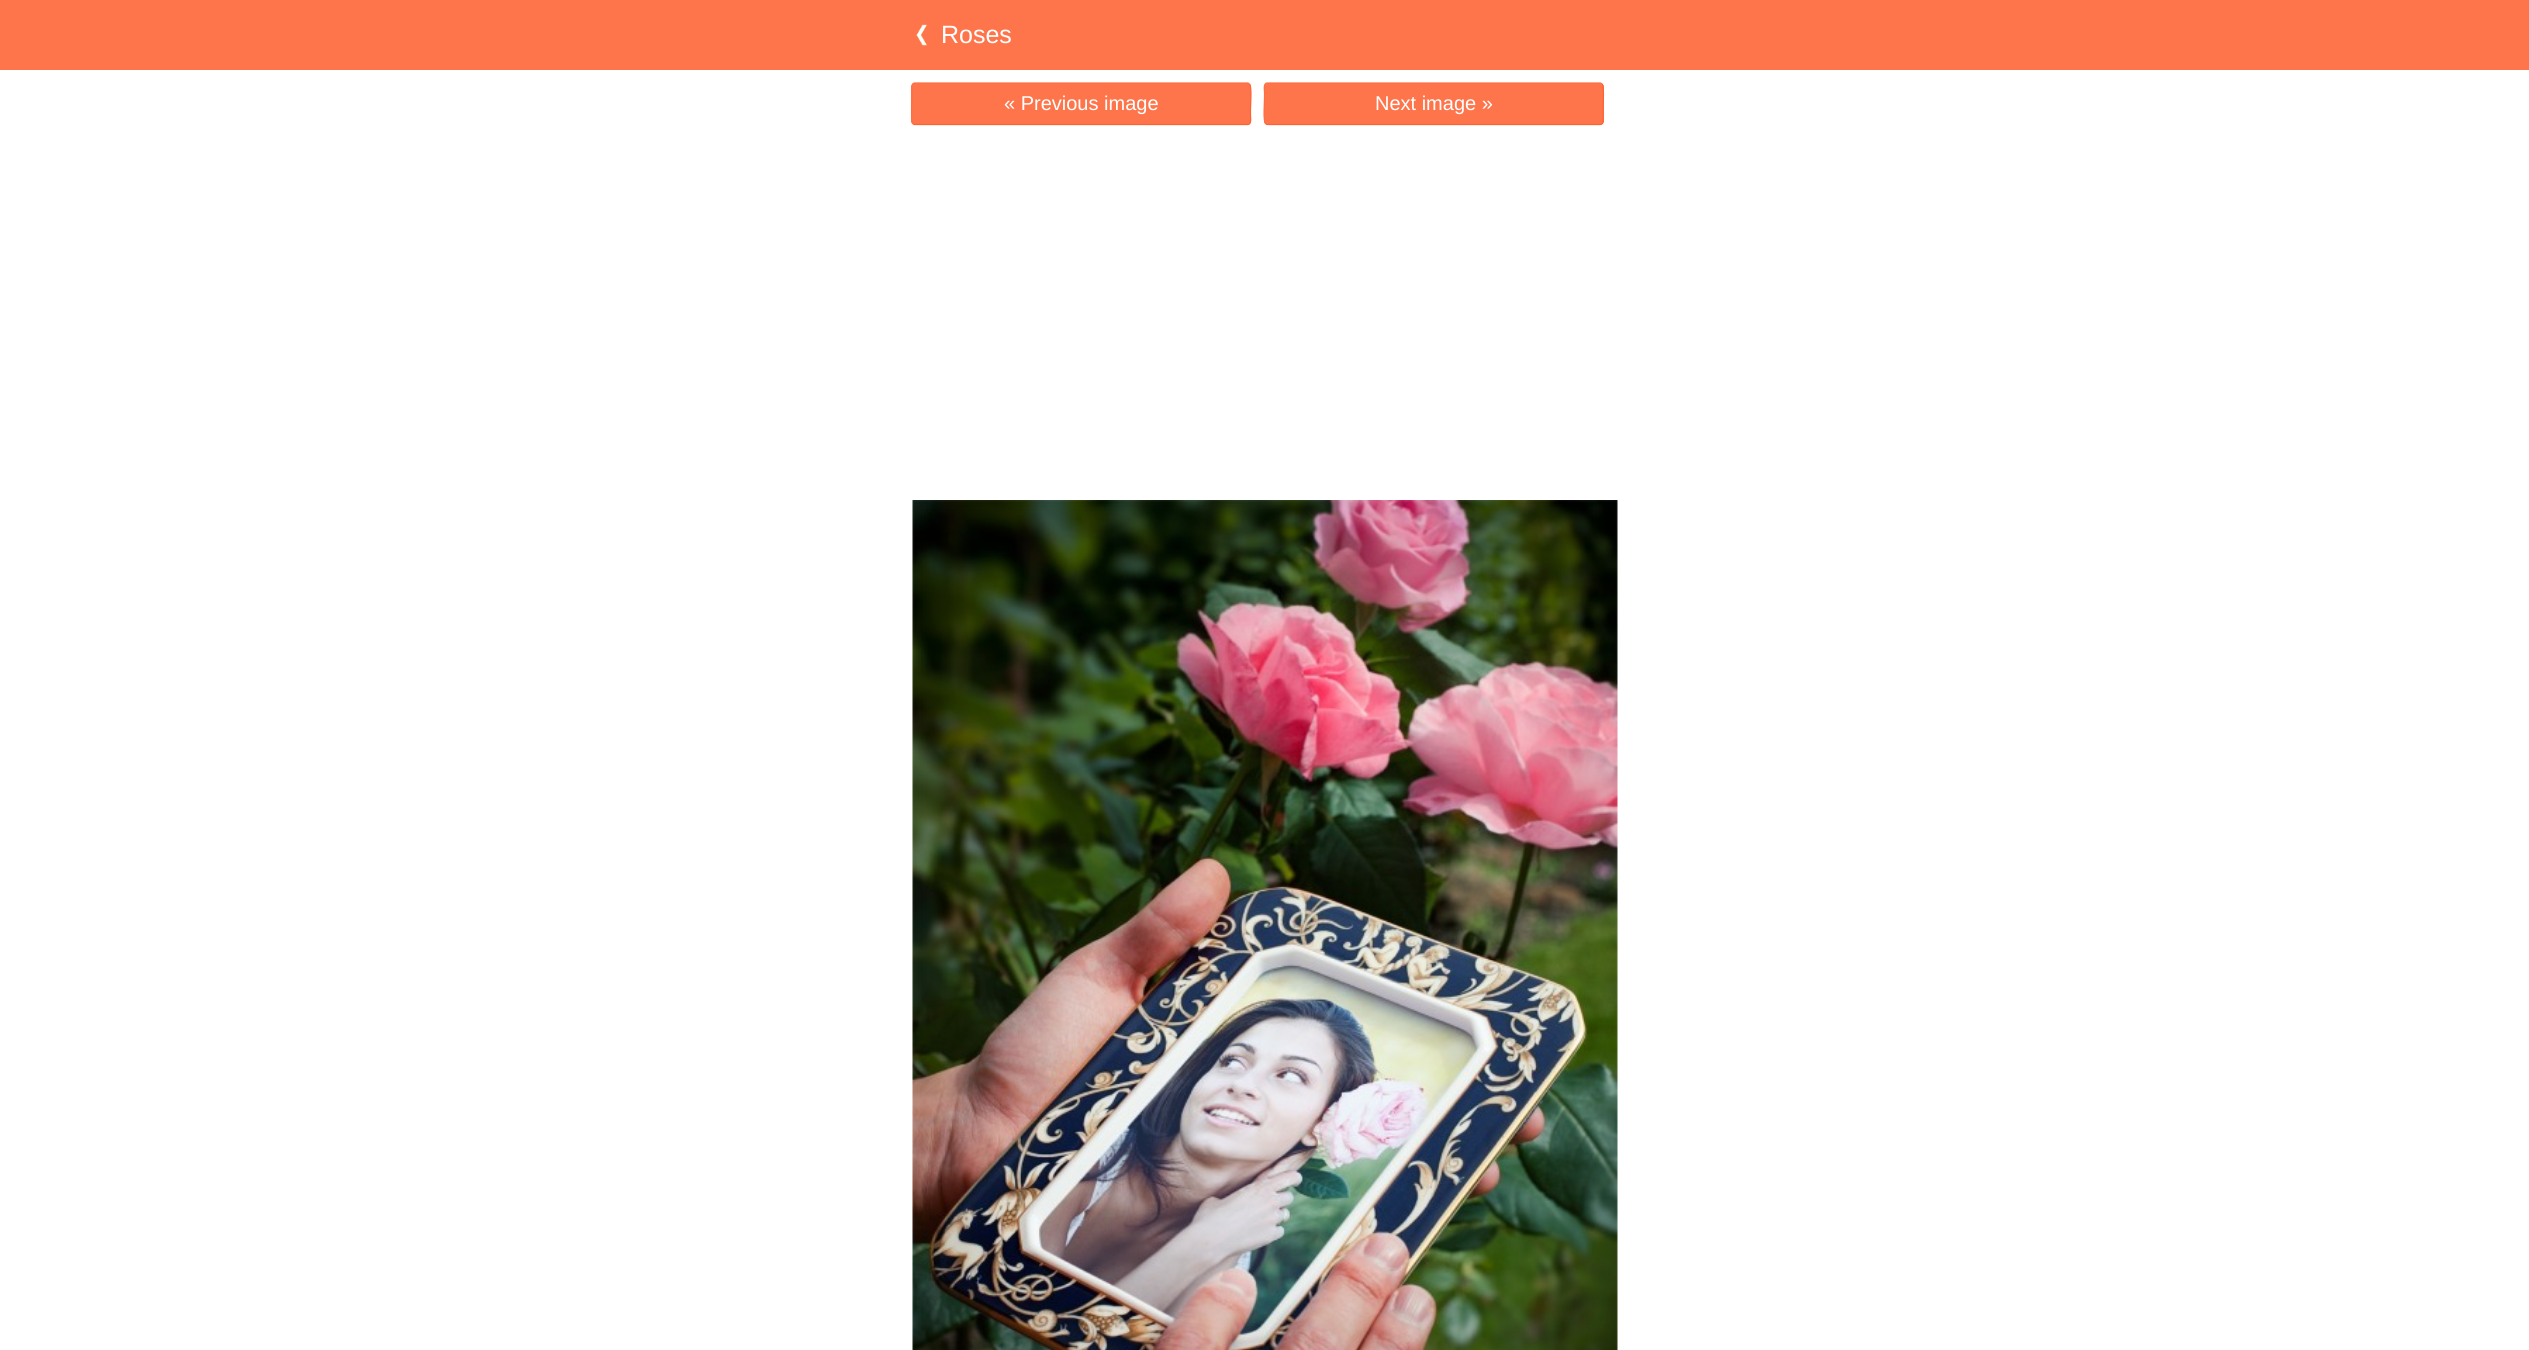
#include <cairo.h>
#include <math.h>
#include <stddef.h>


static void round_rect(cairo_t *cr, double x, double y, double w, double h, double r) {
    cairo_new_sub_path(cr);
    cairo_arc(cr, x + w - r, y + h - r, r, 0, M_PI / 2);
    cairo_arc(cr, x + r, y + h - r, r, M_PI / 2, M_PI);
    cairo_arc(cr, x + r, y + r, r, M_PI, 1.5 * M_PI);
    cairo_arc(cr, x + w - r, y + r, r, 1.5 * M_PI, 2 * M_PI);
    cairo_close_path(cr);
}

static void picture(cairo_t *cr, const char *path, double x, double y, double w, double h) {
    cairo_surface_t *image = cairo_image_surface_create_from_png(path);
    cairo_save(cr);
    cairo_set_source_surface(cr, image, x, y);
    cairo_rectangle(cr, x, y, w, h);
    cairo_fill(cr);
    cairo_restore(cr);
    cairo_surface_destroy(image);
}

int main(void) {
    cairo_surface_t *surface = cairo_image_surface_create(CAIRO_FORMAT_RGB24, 2529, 1350);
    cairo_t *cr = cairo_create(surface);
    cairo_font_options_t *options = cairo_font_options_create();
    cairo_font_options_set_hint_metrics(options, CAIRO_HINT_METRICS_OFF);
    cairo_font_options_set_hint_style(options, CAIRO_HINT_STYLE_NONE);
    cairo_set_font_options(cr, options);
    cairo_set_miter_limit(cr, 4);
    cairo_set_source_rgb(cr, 1, 1, 1);
    cairo_paint(cr);
    cairo_set_source_rgb(cr, 1, 0.459, 0.294);
    cairo_rectangle(cr, 0, 0, 2529, 70);
    cairo_fill(cr);
    picture(cr, "img1.png", 916, 24, 11, 22);
    cairo_select_font_face(cr, "Liberation Sans", CAIRO_FONT_SLANT_NORMAL, CAIRO_FONT_WEIGHT_NORMAL);
    cairo_set_font_size(cr, 25);
    cairo_set_source_rgb(cr, 1, 1, 1);
    cairo_move_to(cr, 941, 43);
    cairo_show_text(cr, "Roses");
    cairo_set_source_rgb(cr, 1, 0.459, 0.294);
    round_rect(cr, 911, 83, 340, 42, 4);
    cairo_fill(cr);
    cairo_new_path(cr);
    cairo_move_to(cr, 1249.5, 84);
    cairo_curve_to(cr, 1252, 86, 1250.5, 105.5, 1250.5, 109.5);
    cairo_line_to(cr, 1250.5, 115.5);
    cairo_curve_to(cr, 1250.5, 117.5, 1252, 124.5, 1247.5, 124.5);
    cairo_line_to(cr, 914.5, 124.5);
    cairo_line_to(cr, 913, 123.5);
    cairo_set_source_rgb(cr, 1, 0.38, 0.192);
    cairo_set_line_width(cr, 1.2);
    cairo_stroke(cr);
    cairo_new_path(cr);
    cairo_move_to(cr, 913, 123.5);
    cairo_curve_to(cr, 910.5, 121.5, 912, 102, 912, 98);
    cairo_line_to(cr, 912, 92);
    cairo_curve_to(cr, 912, 90, 910.5, 83, 915, 83);
    cairo_line_to(cr, 1248, 83);
    cairo_line_to(cr, 1249.5, 84);
    cairo_set_source_rgb(cr, 1, 0.427, 0.255);
    cairo_stroke(cr);
    cairo_set_font_size(cr, 20);
    cairo_set_source_rgb(cr, 1, 1, 1);
    cairo_move_to(cr, 1004, 110);
    cairo_show_text(cr, "« Previous image");
    cairo_set_source_rgb(cr, 1, 0.459, 0.294);
    round_rect(cr, 1264, 83, 340, 42, 4);
    cairo_fill(cr);
    cairo_new_path(cr);
    cairo_move_to(cr, 1602, 84);
    cairo_curve_to(cr, 1604.5, 86, 1603, 105.5, 1603, 109.5);
    cairo_line_to(cr, 1603, 115.5);
    cairo_curve_to(cr, 1603, 117.5, 1604.5, 124.5, 1600, 124.5);
    cairo_line_to(cr, 1267, 124.5);
    cairo_line_to(cr, 1265.5, 123.5);
    cairo_set_source_rgb(cr, 1, 0.38, 0.192);
    cairo_stroke(cr);
    cairo_new_path(cr);
    cairo_move_to(cr, 1265.5, 123.5);
    cairo_curve_to(cr, 1263, 121.5, 1264.5, 102, 1264.5, 98);
    cairo_line_to(cr, 1264.5, 92);
    cairo_curve_to(cr, 1264.5, 90, 1263, 83, 1267.5, 83);
    cairo_line_to(cr, 1600.5, 83);
    cairo_line_to(cr, 1602, 84);
    cairo_set_source_rgb(cr, 1, 0.427, 0.255);
    cairo_stroke(cr);
    cairo_set_source_rgb(cr, 1, 1, 1);
    cairo_move_to(cr, 1375, 110);
    cairo_show_text(cr, "Next image »");
    picture(cr, "img2.png", 912, 500, 706, 850);
    cairo_surface_write_to_png(surface, "page.png");
    cairo_font_options_destroy(options);
    cairo_destroy(cr);
    cairo_surface_destroy(surface);
    return 0;
}
